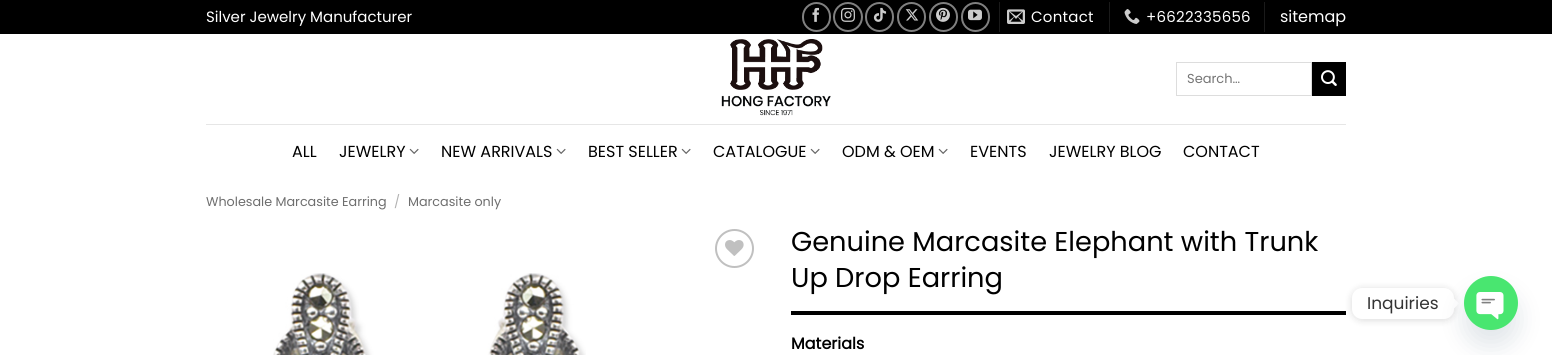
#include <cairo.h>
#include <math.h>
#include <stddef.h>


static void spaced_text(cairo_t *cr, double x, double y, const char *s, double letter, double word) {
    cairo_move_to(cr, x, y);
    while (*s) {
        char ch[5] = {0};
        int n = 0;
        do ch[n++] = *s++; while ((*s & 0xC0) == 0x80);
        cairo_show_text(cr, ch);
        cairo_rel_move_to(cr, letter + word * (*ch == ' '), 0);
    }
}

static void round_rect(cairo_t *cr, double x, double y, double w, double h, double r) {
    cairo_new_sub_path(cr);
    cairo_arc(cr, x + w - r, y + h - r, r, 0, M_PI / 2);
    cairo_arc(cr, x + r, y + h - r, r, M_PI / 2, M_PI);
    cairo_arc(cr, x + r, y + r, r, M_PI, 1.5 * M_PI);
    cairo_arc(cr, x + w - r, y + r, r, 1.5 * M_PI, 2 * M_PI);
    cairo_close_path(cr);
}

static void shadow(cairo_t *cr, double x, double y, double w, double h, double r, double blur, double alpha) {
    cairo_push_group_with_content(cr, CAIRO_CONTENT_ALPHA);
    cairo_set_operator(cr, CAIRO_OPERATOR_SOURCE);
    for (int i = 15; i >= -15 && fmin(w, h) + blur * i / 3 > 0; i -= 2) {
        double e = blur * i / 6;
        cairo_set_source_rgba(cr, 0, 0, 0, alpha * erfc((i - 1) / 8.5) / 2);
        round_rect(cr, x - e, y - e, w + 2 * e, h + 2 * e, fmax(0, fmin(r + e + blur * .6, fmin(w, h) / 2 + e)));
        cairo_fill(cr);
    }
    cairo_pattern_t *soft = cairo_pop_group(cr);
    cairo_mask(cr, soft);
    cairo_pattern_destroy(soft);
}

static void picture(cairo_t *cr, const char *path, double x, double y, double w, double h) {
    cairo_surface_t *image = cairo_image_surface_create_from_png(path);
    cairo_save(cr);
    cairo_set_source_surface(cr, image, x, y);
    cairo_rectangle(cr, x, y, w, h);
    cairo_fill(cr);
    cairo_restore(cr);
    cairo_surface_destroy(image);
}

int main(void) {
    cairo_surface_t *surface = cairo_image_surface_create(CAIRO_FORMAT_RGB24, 1552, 355);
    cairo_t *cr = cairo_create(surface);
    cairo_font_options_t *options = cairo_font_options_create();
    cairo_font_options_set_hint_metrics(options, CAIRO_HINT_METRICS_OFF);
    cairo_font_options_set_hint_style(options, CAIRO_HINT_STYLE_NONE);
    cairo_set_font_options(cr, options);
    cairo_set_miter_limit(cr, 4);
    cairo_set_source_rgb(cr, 1, 1, 1);
    cairo_paint(cr);
    cairo_set_source_rgb(cr, 0, 0, 0);
    cairo_rectangle(cr, 0, 0, 1552, 34);
    cairo_fill(cr);
    cairo_select_font_face(cr, "Poppins", CAIRO_FONT_SLANT_NORMAL, CAIRO_FONT_WEIGHT_NORMAL);
    cairo_set_font_size(cr, 15);
    cairo_set_source_rgb(cr, 1, 1, 1);
    cairo_move_to(cr, 206, 22);
    cairo_show_text(cr, "Silver Jewelry Manufacturer");
    round_rect(cr, 803, 3, 27, 28, 13.5);
    cairo_set_source_rgb(cr, 0.502, 0.502, 0.502);
    cairo_stroke(cr);
    picture(cr, "img1.png", 812, 7, 7, 15);
    cairo_arc(cr, 848, 17, 14, 0, 2 * M_PI);
    cairo_stroke(cr);
    picture(cr, "img2.png", 841, 7, 14, 15);
    round_rect(cr, 866, 3, 27, 28, 13.5);
    cairo_stroke(cr);
    picture(cr, "img3.png", 873, 7, 14, 15);
    round_rect(cr, 898, 3, 27, 28, 13.5);
    cairo_stroke(cr);
    picture(cr, "img4.png", 905, 9, 14, 12);
    round_rect(cr, 930, 3, 27, 28, 13.5);
    cairo_stroke(cr);
    picture(cr, "img5.png", 936, 7, 14, 15);
    round_rect(cr, 962, 3, 27, 28, 13.5);
    cairo_stroke(cr);
    picture(cr, "img6.png", 968, 9, 14, 12);
    cairo_set_source_rgb(cr, 0.102, 0.102, 0.102);
    cairo_rectangle(cr, 999, 2, 1, 30);
    cairo_fill(cr);
    picture(cr, "img7.png", 1007, 9, 18, 15);
    cairo_set_source_rgb(cr, 1, 1, 1);
    spaced_text(cr, 1031, 22, "Contact", 0.25, 0);
    cairo_set_source_rgb(cr, 0.102, 0.102, 0.102);
    cairo_rectangle(cr, 1109, 2, 1, 30);
    cairo_fill(cr);
    picture(cr, "img8.png", 1124, 9, 16, 15);
    cairo_set_source_rgb(cr, 1, 1, 1);
    spaced_text(cr, 1146, 22, "+6622335656", 0.25, 0);
    cairo_set_source_rgb(cr, 0.102, 0.102, 0.102);
    cairo_rectangle(cr, 1264, 2, 1, 30);
    cairo_fill(cr);
    cairo_set_font_size(cr, 16);
    cairo_set_source_rgb(cr, 1, 1, 1);
    cairo_move_to(cr, 1280, 22);
    cairo_show_text(cr, "sitemap");
    picture(cr, "img9.png", 721, 39, 110, 77);
    cairo_rectangle(cr, 1176.5, 62.5, 135, 33);
    cairo_set_source_rgb(cr, 0.867, 0.867, 0.867);
    cairo_set_line_width(cr, 1);
    cairo_stroke(cr);
    cairo_set_font_size(cr, 13);
    cairo_set_source_rgb(cr, 0.459, 0.459, 0.459);
    cairo_move_to(cr, 1187, 83);
    cairo_show_text(cr, "Search…");
    cairo_set_source_rgb(cr, 0, 0, 0);
    cairo_rectangle(cr, 1312, 62, 34, 34);
    cairo_fill(cr);
    picture(cr, "img10.png", 1321, 70, 16, 16);
    cairo_set_source_rgb(cr, 0.902, 0.902, 0.902);
    cairo_rectangle(cr, 206, 124, 1140, 1);
    cairo_fill(cr);
    cairo_set_font_size(cr, 16);
    cairo_set_source_rgb(cr, 0, 0, 0);
    cairo_move_to(cr, 292, 157);
    cairo_show_text(cr, "ALL");
    cairo_move_to(cr, 339, 157);
    cairo_show_text(cr, "JEWELRY");
    picture(cr, "img11.png", 409, 148, 10, 6);
    cairo_move_to(cr, 441, 157);
    cairo_show_text(cr, "NEW ARRIVALS");
    picture(cr, "img11.png", 556, 148, 10, 6);
    cairo_move_to(cr, 588, 157);
    cairo_show_text(cr, "BEST SELLER");
    picture(cr, "img11.png", 681, 148, 10, 6);
    cairo_move_to(cr, 713, 157);
    cairo_show_text(cr, "CATALOGUE");
    picture(cr, "img11.png", 810, 148, 10, 6);
    cairo_move_to(cr, 842, 157);
    cairo_show_text(cr, "ODM & OEM");
    picture(cr, "img11.png", 938, 148, 10, 6);
    cairo_move_to(cr, 970, 157);
    cairo_show_text(cr, "EVENTS");
    cairo_move_to(cr, 1049, 157);
    cairo_show_text(cr, "JEWELRY BLOG");
    cairo_move_to(cr, 1183, 157);
    cairo_show_text(cr, "CONTACT");
    cairo_set_font_size(cr, 12.75);
    cairo_set_source_rgb(cr, 0.431, 0.431, 0.431);
    cairo_move_to(cr, 206, 206);
    cairo_show_text(cr, "Wholesale Marcasite Earring");
    cairo_set_source_rgb(cr, 0.698, 0.698, 0.698);
    cairo_move_to(cr, 394, 206);
    cairo_show_text(cr, "/");
    cairo_set_source_rgb(cr, 0.431, 0.431, 0.431);
    cairo_move_to(cr, 408, 206);
    cairo_show_text(cr, "Marcasite only");
    cairo_new_path(cr);
    cairo_arc(cr, 734.5, 248.5, 18.5, 0, 2 * M_PI);
    cairo_set_source_rgb(cr, 0.753, 0.753, 0.753);
    cairo_set_line_width(cr, 2);
    cairo_stroke(cr);
    picture(cr, "img12.png", 725, 240, 19, 16);
    picture(cr, "img13.png", 273, 273, 313, 82);
    cairo_set_font_size(cr, 27.25);
    cairo_set_source_rgb(cr, 0, 0, 0);
    cairo_move_to(cr, 791, 251);
    cairo_show_text(cr, "Genuine Marcasite Elephant with Trunk");
    cairo_move_to(cr, 791, 287);
    cairo_show_text(cr, "Up Drop Earring");
    cairo_rectangle(cr, 791, 311, 555, 4);
    cairo_fill(cr);
    cairo_select_font_face(cr, "Poppins", CAIRO_FONT_SLANT_NORMAL, CAIRO_FONT_WEIGHT_BOLD);
    cairo_set_font_size(cr, 16);
    cairo_move_to(cr, 791, 349);
    cairo_show_text(cr, "Materials");
    cairo_set_source_rgb(cr, 0, 0, 0);
    shadow(cr, 1352, 289, 102, 31, 10, 4, 0.15);
    cairo_set_source_rgb(cr, 1, 1, 1);
    round_rect(cr, 1352, 288, 102, 31, 10);
    cairo_fill(cr);
    cairo_select_font_face(cr, "Poppins", CAIRO_FONT_SLANT_NORMAL, CAIRO_FONT_WEIGHT_NORMAL);
    cairo_set_font_size(cr, 17);
    cairo_set_source_rgb(cr, 0.2, 0.2, 0.2);
    cairo_move_to(cr, 1367, 309);
    cairo_show_text(cr, "Inquiries");
    cairo_set_source_rgb(cr, 1, 1, 1);
    cairo_new_path(cr);
    cairo_move_to(cr, 1454, 308.5);
    cairo_line_to(cr, 1454, 298.5);
    cairo_line_to(cr, 1459, 303.5);
    cairo_close_path(cr);
    cairo_fill(cr);
    cairo_set_source_rgb(cr, 0.286, 0.408, 0.494);
    shadow(cr, 1464, 292, 54, 54, 27, 12, 0.16);
    picture(cr, "img14.png", 1464, 276, 54, 54);
    cairo_surface_write_to_png(surface, "page.png");
    cairo_font_options_destroy(options);
    cairo_destroy(cr);
    cairo_surface_destroy(surface);
    return 0;
}
